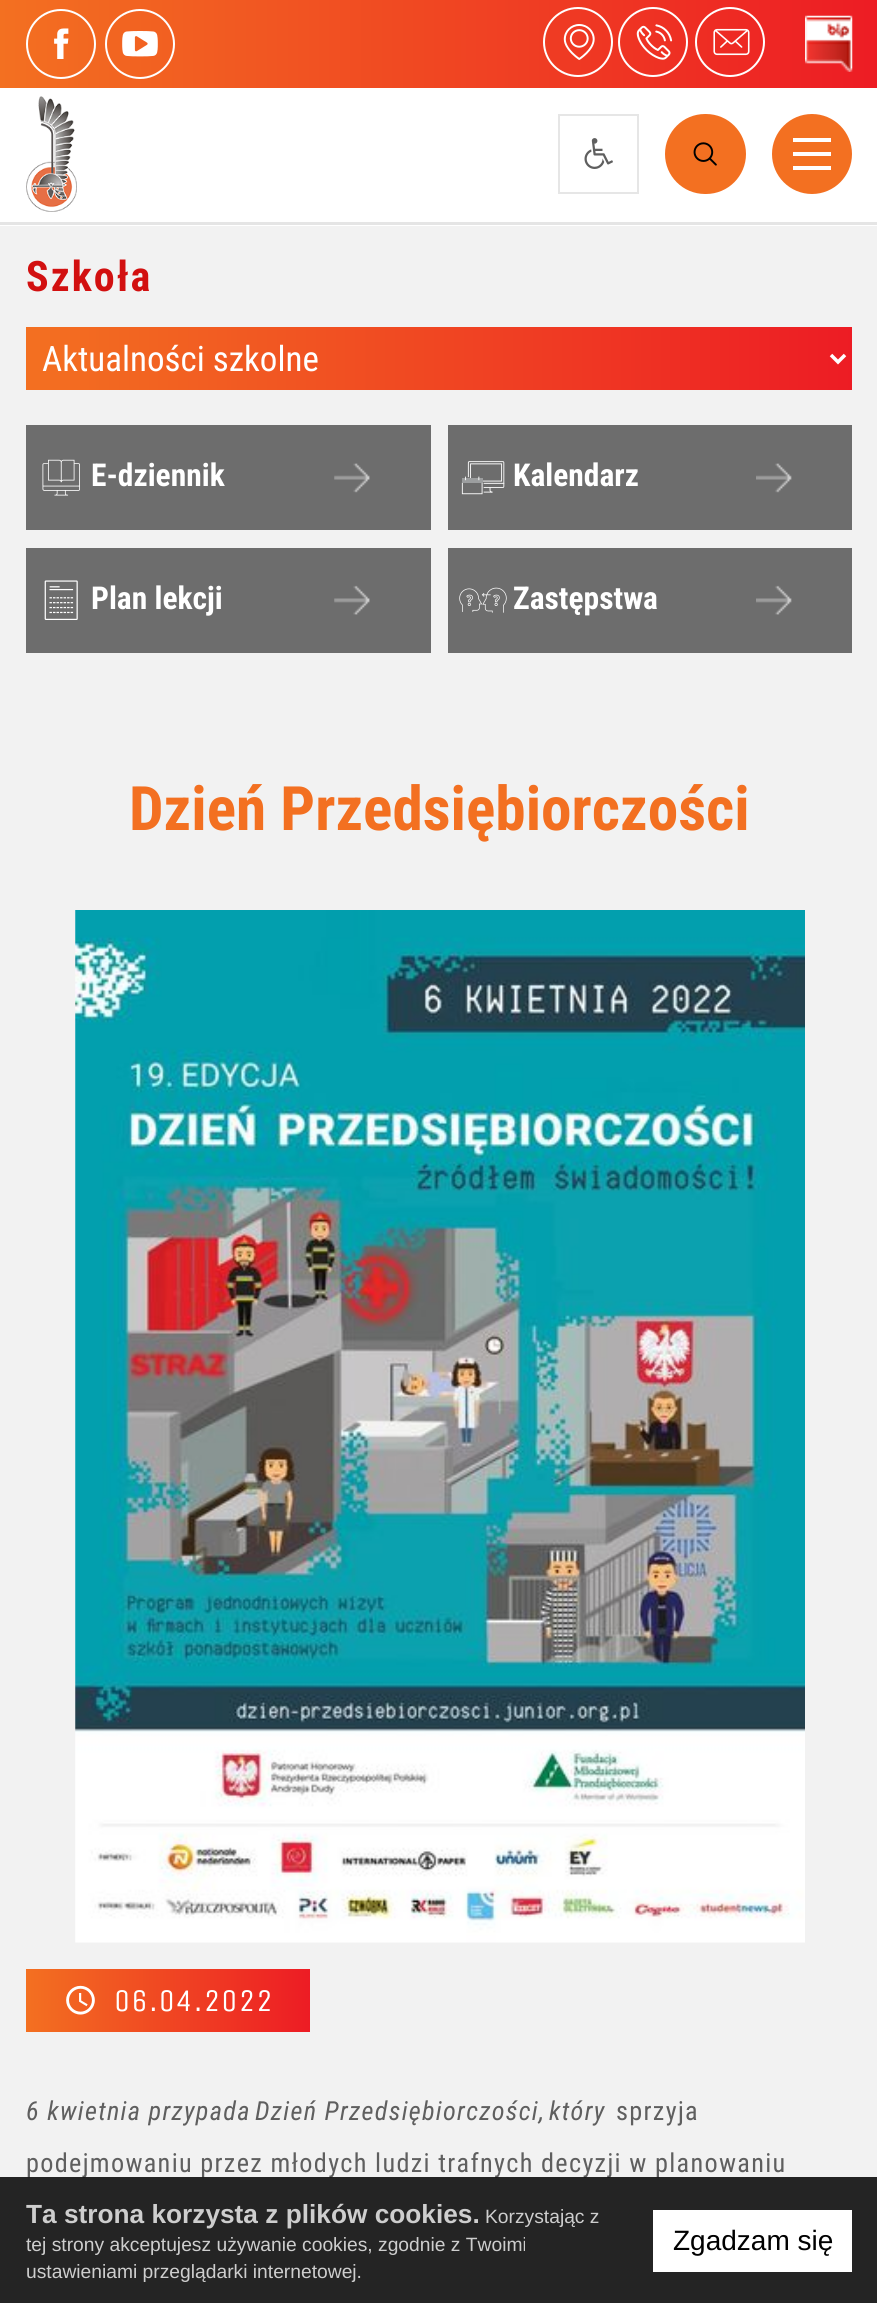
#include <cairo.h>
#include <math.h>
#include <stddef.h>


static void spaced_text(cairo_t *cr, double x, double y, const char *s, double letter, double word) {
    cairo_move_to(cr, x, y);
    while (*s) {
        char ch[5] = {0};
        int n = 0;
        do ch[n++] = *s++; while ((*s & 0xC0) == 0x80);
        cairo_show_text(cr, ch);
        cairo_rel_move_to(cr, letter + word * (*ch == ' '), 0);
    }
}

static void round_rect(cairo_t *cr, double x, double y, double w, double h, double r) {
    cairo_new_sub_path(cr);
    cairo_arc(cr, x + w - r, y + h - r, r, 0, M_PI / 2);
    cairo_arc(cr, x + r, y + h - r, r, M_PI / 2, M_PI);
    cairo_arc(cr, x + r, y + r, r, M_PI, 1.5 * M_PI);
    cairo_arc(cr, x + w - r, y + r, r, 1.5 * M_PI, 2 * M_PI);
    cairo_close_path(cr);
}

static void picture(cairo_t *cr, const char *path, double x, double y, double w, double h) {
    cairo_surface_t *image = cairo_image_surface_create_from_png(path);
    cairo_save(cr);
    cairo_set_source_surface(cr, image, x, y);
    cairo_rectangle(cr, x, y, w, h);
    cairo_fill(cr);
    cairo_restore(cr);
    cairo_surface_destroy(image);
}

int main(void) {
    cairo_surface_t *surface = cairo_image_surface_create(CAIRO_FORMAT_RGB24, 877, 2303);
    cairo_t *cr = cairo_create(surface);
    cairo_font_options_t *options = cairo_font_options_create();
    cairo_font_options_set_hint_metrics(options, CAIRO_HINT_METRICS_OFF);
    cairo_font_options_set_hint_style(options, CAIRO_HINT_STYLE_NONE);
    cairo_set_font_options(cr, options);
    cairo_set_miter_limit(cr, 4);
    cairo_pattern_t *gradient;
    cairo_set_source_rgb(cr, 1, 1, 1);
    cairo_paint(cr);
    gradient = cairo_pattern_create_linear(0, 44, 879, 44);
    cairo_pattern_add_color_stop_rgba(gradient, 0, 0.953, 0.439, 0.129, 1);
    cairo_pattern_add_color_stop_rgba(gradient, 1, 0.929, 0.11, 0.141, 1);
    cairo_set_source(cr, gradient);
    cairo_pattern_destroy(gradient);
    cairo_rectangle(cr, 0, 0, 877, 88);
    cairo_fill(cr);
    cairo_arc(cr, 61, 44, 34, 0, 2 * M_PI);
    cairo_set_source_rgb(cr, 1, 1, 1);
    cairo_stroke(cr);
    picture(cr, "img1.png", 54, 28, 15, 31);
    cairo_arc(cr, 140, 44, 34, 0, 2 * M_PI);
    cairo_stroke(cr);
    picture(cr, "img2.png", 122, 31, 36, 26);
    cairo_arc(cr, 578, 42, 34, 0, 2 * M_PI);
    cairo_stroke(cr);
    picture(cr, "img3.png", 563, 24, 32, 36);
    cairo_arc(cr, 653, 42, 34, 0, 2 * M_PI);
    cairo_stroke(cr);
    picture(cr, "img4.png", 636, 24, 37, 36);
    cairo_arc(cr, 730, 42, 34, 0, 2 * M_PI);
    cairo_stroke(cr);
    picture(cr, "img5.png", 713, 28, 37, 28);
    picture(cr, "img6.png", 805, 15, 48, 57);
    cairo_set_source_rgb(cr, 0.898, 0.898, 0.898);
    cairo_rectangle(cr, 0, 222, 877, 3);
    cairo_fill(cr);
    picture(cr, "img7.png", 26, 96, 51, 116);
    cairo_rectangle(cr, 559, 115, 79, 78);
    cairo_set_source_rgb(cr, 0.902, 0.902, 0.902);
    cairo_stroke(cr);
    picture(cr, "img8.png", 584, 138, 29, 31);
    cairo_set_source_rgb(cr, 0.953, 0.439, 0.129);
    round_rect(cr, 665, 114, 81, 80, 40);
    cairo_fill(cr);
    picture(cr, "img9.png", 693, 142, 24, 24);
    cairo_arc(cr, 812, 154, 40, 0, 2 * M_PI);
    cairo_fill(cr);
    cairo_set_source_rgb(cr, 1, 1, 1);
    cairo_rectangle(cr, 793, 138, 38, 4);
    cairo_fill(cr);
    cairo_rectangle(cr, 793, 152, 38, 4);
    cairo_fill(cr);
    cairo_rectangle(cr, 793, 166, 38, 4);
    cairo_fill(cr);
    cairo_set_source_rgb(cr, 0.949, 0.949, 0.949);
    cairo_rectangle(cr, 0, 226, 877, 2077);
    cairo_fill(cr);
    cairo_select_font_face(cr, "Roboto Condensed", CAIRO_FONT_SLANT_NORMAL, CAIRO_FONT_WEIGHT_BOLD);
    cairo_set_font_size(cr, 42);
    cairo_set_source_rgb(cr, 0.824, 0.063, 0.063);
    spaced_text(cr, 26, 291, "Szkoła", 2, 0);
    gradient = cairo_pattern_create_linear(26, 359, 852, 359);
    cairo_pattern_add_color_stop_rgba(gradient, 0, 0.953, 0.439, 0.129, 1);
    cairo_pattern_add_color_stop_rgba(gradient, 1, 0.929, 0.11, 0.141, 1);
    cairo_set_source(cr, gradient);
    cairo_pattern_destroy(gradient);
    cairo_rectangle(cr, 26, 327, 826, 63);
    cairo_fill(cr);
    cairo_new_path(cr);
    cairo_move_to(cr, 831, 355);
    cairo_line_to(cr, 838, 362);
    cairo_line_to(cr, 845, 355);
    cairo_set_source_rgb(cr, 1, 1, 1);
    cairo_set_line_width(cr, 3.5);
    cairo_stroke(cr);
    cairo_select_font_face(cr, "Roboto Condensed", CAIRO_FONT_SLANT_NORMAL, CAIRO_FONT_WEIGHT_NORMAL);
    cairo_set_font_size(cr, 35);
    cairo_move_to(cr, 42, 371);
    cairo_show_text(cr, "Aktualności szkolne");
    cairo_set_source_rgb(cr, 0.427, 0.427, 0.427);
    cairo_rectangle(cr, 26, 425, 405, 105);
    cairo_fill(cr);
    picture(cr, "img10.png", 334, 463, 36, 30);
    picture(cr, "img11.png", 42, 459, 38, 37);
    cairo_select_font_face(cr, "Roboto Condensed", CAIRO_FONT_SLANT_NORMAL, CAIRO_FONT_WEIGHT_BOLD);
    cairo_set_font_size(cr, 31.5);
    cairo_set_source_rgb(cr, 1, 1, 1);
    cairo_move_to(cr, 91, 486);
    cairo_show_text(cr, "E-dziennik");
    cairo_set_source_rgb(cr, 0.427, 0.427, 0.427);
    cairo_rectangle(cr, 448, 425, 404, 105);
    cairo_fill(cr);
    picture(cr, "img12.png", 756, 463, 36, 30);
    picture(cr, "img13.png", 461, 461, 44, 34);
    cairo_set_source_rgb(cr, 1, 1, 1);
    cairo_move_to(cr, 513, 486);
    cairo_show_text(cr, "Kalendarz");
    cairo_set_source_rgb(cr, 0.427, 0.427, 0.427);
    cairo_rectangle(cr, 26, 548, 405, 105);
    cairo_fill(cr);
    picture(cr, "img14.png", 334, 585, 36, 30);
    picture(cr, "img15.png", 44, 580, 34, 40);
    cairo_set_source_rgb(cr, 1, 1, 1);
    cairo_move_to(cr, 91, 609);
    cairo_show_text(cr, "Plan lekcji");
    cairo_set_source_rgb(cr, 0.427, 0.427, 0.427);
    cairo_rectangle(cr, 448, 548, 404, 105);
    cairo_fill(cr);
    picture(cr, "img16.png", 756, 585, 36, 30);
    picture(cr, "img17.png", 459, 587, 48, 26);
    cairo_set_source_rgb(cr, 1, 1, 1);
    cairo_move_to(cr, 513, 609);
    cairo_show_text(cr, "Zastępstwa");
    cairo_set_font_size(cr, 61.25);
    cairo_set_source_rgb(cr, 0.953, 0.439, 0.129);
    cairo_move_to(cr, 129, 830);
    cairo_show_text(cr, "Dzień Przedsiębiorczości");
    picture(cr, "img18.png", 75, 910, 730, 1033);
    gradient = cairo_pattern_create_linear(26, 2000, 310, 2000);
    cairo_pattern_add_color_stop_rgba(gradient, 0, 0.953, 0.439, 0.129, 1);
    cairo_pattern_add_color_stop_rgba(gradient, 1, 0.929, 0.11, 0.141, 1);
    cairo_set_source(cr, gradient);
    cairo_pattern_destroy(gradient);
    cairo_rectangle(cr, 26, 1969, 284, 63);
    cairo_fill(cr);
    picture(cr, "img19.png", 66, 1985, 29, 30);
    cairo_select_font_face(cr, "Unica One", CAIRO_FONT_SLANT_NORMAL, CAIRO_FONT_WEIGHT_NORMAL);
    cairo_set_font_size(cr, 31.5);
    cairo_set_source_rgb(cr, 1, 1, 1);
    spaced_text(cr, 114, 2011, "06.04.2022", 1.5, 0);
    cairo_select_font_face(cr, "Roboto Condensed", CAIRO_FONT_SLANT_ITALIC, CAIRO_FONT_WEIGHT_NORMAL);
    cairo_set_font_size(cr, 26.25);
    cairo_set_source_rgb(cr, 0.373, 0.373, 0.373);
    spaced_text(cr, 26, 2120, "6 kwietnia przypada", 1.3, 0);
    spaced_text(cr, 255, 2120, "Dzień Przedsiębiorczości,", 1.3, 0);
    spaced_text(cr, 549, 2120, "który", 1.3, 0);
    cairo_select_font_face(cr, "Roboto Condensed", CAIRO_FONT_SLANT_NORMAL, CAIRO_FONT_WEIGHT_NORMAL);
    spaced_text(cr, 616, 2120, "sprzyja", 1.3, 0);
    spaced_text(cr, 26, 2172, "podejmowaniu przez młodych ludzi trafnych decyzji w planowaniu", 1.3, 0);
    cairo_set_source_rgba(cr, 0, 0, 0, 0.85);
    cairo_rectangle(cr, 0, 2177, 877, 126);
    cairo_fill(cr);
    cairo_select_font_face(cr, "Liberation Sans", CAIRO_FONT_SLANT_NORMAL, CAIRO_FONT_WEIGHT_BOLD);
    cairo_set_source_rgb(cr, 0.808, 0.808, 0.808);
    cairo_move_to(cr, 26, 2223);
    cairo_show_text(cr, "Ta strona korzysta z plików cookies.");
    cairo_select_font_face(cr, "Liberation Sans", CAIRO_FONT_SLANT_NORMAL, CAIRO_FONT_WEIGHT_NORMAL);
    cairo_set_font_size(cr, 19.25);
    cairo_move_to(cr, 485, 2223);
    cairo_show_text(cr, "Korzystając z");
    cairo_move_to(cr, 26, 2251);
    cairo_show_text(cr, "tej strony akceptujesz używanie cookies, zgodnie z Twoimi");
    cairo_move_to(cr, 26, 2278);
    cairo_show_text(cr, "ustawieniami przeglądarki internetowej.");
    cairo_set_source_rgb(cr, 1, 1, 1);
    cairo_rectangle(cr, 653, 2210, 199, 62);
    cairo_fill(cr);
    cairo_set_font_size(cr, 28);
    cairo_set_source_rgb(cr, 0, 0, 0);
    cairo_move_to(cr, 673, 2250);
    cairo_show_text(cr, "Zgadzam się");
    cairo_surface_write_to_png(surface, "page.png");
    cairo_font_options_destroy(options);
    cairo_destroy(cr);
    cairo_surface_destroy(surface);
    return 0;
}
